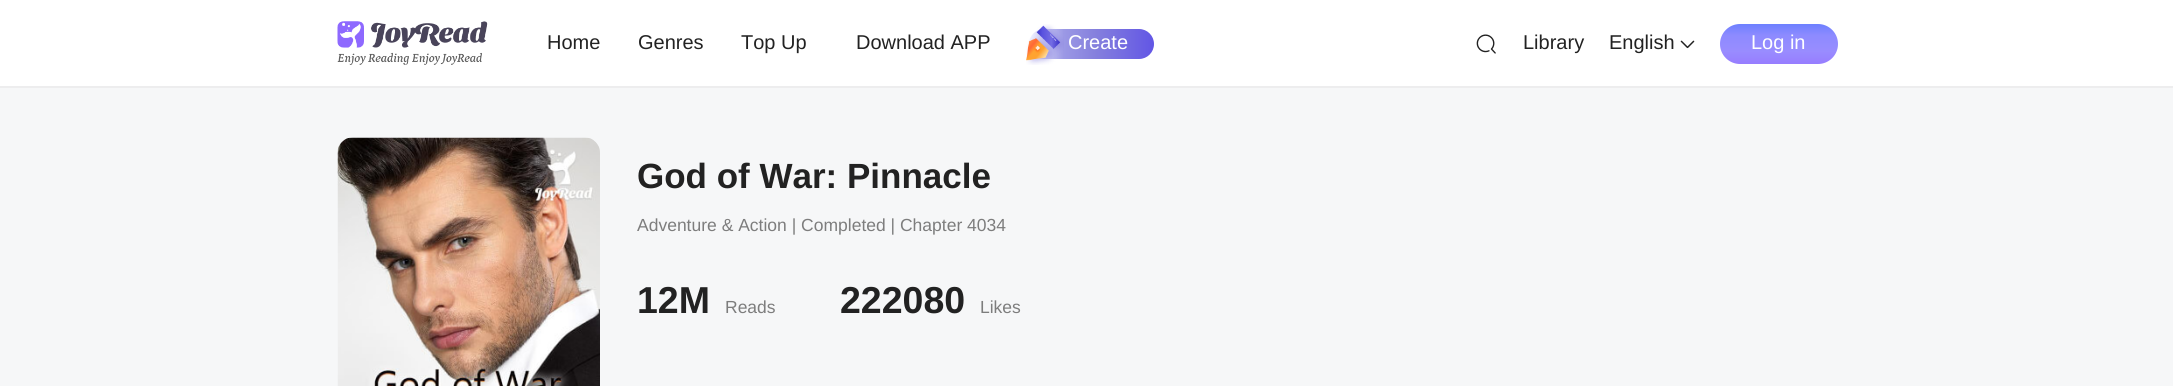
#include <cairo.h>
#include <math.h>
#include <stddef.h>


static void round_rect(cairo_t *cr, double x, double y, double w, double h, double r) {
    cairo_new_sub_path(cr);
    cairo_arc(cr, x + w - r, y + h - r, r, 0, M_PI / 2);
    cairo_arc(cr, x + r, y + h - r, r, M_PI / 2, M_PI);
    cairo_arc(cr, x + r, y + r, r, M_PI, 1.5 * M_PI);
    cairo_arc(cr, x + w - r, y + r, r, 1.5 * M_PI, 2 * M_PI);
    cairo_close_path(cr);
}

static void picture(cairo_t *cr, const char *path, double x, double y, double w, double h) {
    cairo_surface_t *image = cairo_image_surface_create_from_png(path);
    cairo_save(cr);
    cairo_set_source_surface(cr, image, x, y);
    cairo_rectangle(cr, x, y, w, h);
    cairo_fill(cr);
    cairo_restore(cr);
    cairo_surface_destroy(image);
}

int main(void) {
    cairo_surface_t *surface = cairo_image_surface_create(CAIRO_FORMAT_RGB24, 2173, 386);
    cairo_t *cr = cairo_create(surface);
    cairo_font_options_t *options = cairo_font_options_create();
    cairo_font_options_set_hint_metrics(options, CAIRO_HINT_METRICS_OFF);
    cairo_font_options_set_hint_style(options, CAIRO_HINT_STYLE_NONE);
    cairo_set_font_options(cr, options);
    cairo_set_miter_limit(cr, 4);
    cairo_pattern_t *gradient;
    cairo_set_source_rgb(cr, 1, 1, 1);
    cairo_paint(cr);
    cairo_set_source_rgb(cr, 0.929, 0.929, 0.933);
    cairo_new_path(cr);
    cairo_move_to(cr, 0, 86);
    cairo_line_to(cr, 0, 88);
    cairo_line_to(cr, 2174, 88);
    cairo_line_to(cr, 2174, 1);
    cairo_line_to(cr, 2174, 86);
    cairo_close_path(cr);
    cairo_fill(cr);
    picture(cr, "img1.png", 337, 21, 151, 44);
    cairo_select_font_face(cr, "Liberation Sans", CAIRO_FONT_SLANT_NORMAL, CAIRO_FONT_WEIGHT_NORMAL);
    cairo_set_font_size(cr, 20);
    cairo_set_source_rgb(cr, 0.133, 0.133, 0.133);
    cairo_move_to(cr, 547, 49);
    cairo_show_text(cr, "Home");
    cairo_move_to(cr, 638, 49);
    cairo_show_text(cr, "Genres");
    cairo_move_to(cr, 741, 49);
    cairo_show_text(cr, "Top Up");
    cairo_move_to(cr, 856, 49);
    cairo_show_text(cr, "Download APP");
    gradient = cairo_pattern_create_linear(1029, 44, 1154, 44);
    cairo_pattern_add_color_stop_rgba(gradient, 0, 0.953, 0.961, 1, 1);
    cairo_pattern_add_color_stop_rgba(gradient, 0.28, 0.608, 0.596, 0.898, 1);
    cairo_pattern_add_color_stop_rgba(gradient, 0.53, 0.522, 0.502, 0.867, 1);
    cairo_pattern_add_color_stop_rgba(gradient, 1, 0.384, 0.337, 0.898, 1);
    cairo_set_source(cr, gradient);
    cairo_pattern_destroy(gradient);
    round_rect(cr, 1029, 29, 125, 30, 15);
    cairo_fill(cr);
    picture(cr, "img2.png", 1026, 24, 38, 41);
    cairo_set_source_rgb(cr, 1, 1, 1);
    cairo_move_to(cr, 1068, 49);
    cairo_show_text(cr, "Create");
    picture(cr, "img3.png", 1476, 34, 20, 20);
    cairo_set_source_rgb(cr, 0.133, 0.133, 0.133);
    cairo_move_to(cr, 1523, 49);
    cairo_show_text(cr, "Library");
    cairo_move_to(cr, 1609, 49);
    cairo_show_text(cr, "English");
    picture(cr, "img4.png", 1680, 40, 15, 9);
    gradient = cairo_pattern_create_linear(1779, 24, 1779, 64);
    cairo_pattern_add_color_stop_rgba(gradient, 0, 0.427, 0.502, 1, 1);
    cairo_pattern_add_color_stop_rgba(gradient, 0.28, 0.553, 0.545, 1, 1);
    cairo_pattern_add_color_stop_rgba(gradient, 0.68, 0.6, 0.549, 1, 1);
    cairo_pattern_add_color_stop_rgba(gradient, 1, 0.592, 0.49, 1, 1);
    cairo_set_source(cr, gradient);
    cairo_pattern_destroy(gradient);
    round_rect(cr, 1720, 24, 118, 40, 20);
    cairo_fill(cr);
    cairo_set_source_rgb(cr, 1, 1, 1);
    cairo_move_to(cr, 1751, 49);
    cairo_show_text(cr, "Log in");
    cairo_set_source_rgb(cr, 0.961, 0.965, 0.969);
    cairo_rectangle(cr, 0, 88, 2173, 298);
    cairo_fill(cr);
    picture(cr, "img5.png", 337, 137, 263, 249);
    cairo_select_font_face(cr, "Liberation Sans", CAIRO_FONT_SLANT_NORMAL, CAIRO_FONT_WEIGHT_BOLD);
    cairo_set_font_size(cr, 35);
    cairo_set_source_rgb(cr, 0.133, 0.133, 0.133);
    cairo_move_to(cr, 637, 188);
    cairo_show_text(cr, "God of War: Pinnacle");
    cairo_select_font_face(cr, "Liberation Sans", CAIRO_FONT_SLANT_NORMAL, CAIRO_FONT_WEIGHT_NORMAL);
    cairo_set_font_size(cr, 17.5);
    cairo_set_source_rgb(cr, 0.49, 0.49, 0.49);
    cairo_move_to(cr, 637, 231);
    cairo_show_text(cr, "Adventure & Action | Completed | Chapter 4034");
    cairo_select_font_face(cr, "Liberation Sans", CAIRO_FONT_SLANT_NORMAL, CAIRO_FONT_WEIGHT_BOLD);
    cairo_set_font_size(cr, 37.5);
    cairo_set_source_rgb(cr, 0.133, 0.133, 0.133);
    cairo_move_to(cr, 637, 313);
    cairo_show_text(cr, "12M");
    cairo_select_font_face(cr, "Liberation Sans", CAIRO_FONT_SLANT_NORMAL, CAIRO_FONT_WEIGHT_NORMAL);
    cairo_set_font_size(cr, 17.5);
    cairo_set_source_rgb(cr, 0.49, 0.49, 0.49);
    cairo_move_to(cr, 725, 313);
    cairo_show_text(cr, "Reads");
    cairo_select_font_face(cr, "Liberation Sans", CAIRO_FONT_SLANT_NORMAL, CAIRO_FONT_WEIGHT_BOLD);
    cairo_set_font_size(cr, 37.5);
    cairo_set_source_rgb(cr, 0.133, 0.133, 0.133);
    cairo_move_to(cr, 840, 313);
    cairo_show_text(cr, "222080");
    cairo_select_font_face(cr, "Liberation Sans", CAIRO_FONT_SLANT_NORMAL, CAIRO_FONT_WEIGHT_NORMAL);
    cairo_set_font_size(cr, 17.5);
    cairo_set_source_rgb(cr, 0.49, 0.49, 0.49);
    cairo_move_to(cr, 980, 313);
    cairo_show_text(cr, "Likes");
    cairo_surface_write_to_png(surface, "page.png");
    cairo_font_options_destroy(options);
    cairo_destroy(cr);
    cairo_surface_destroy(surface);
    return 0;
}
